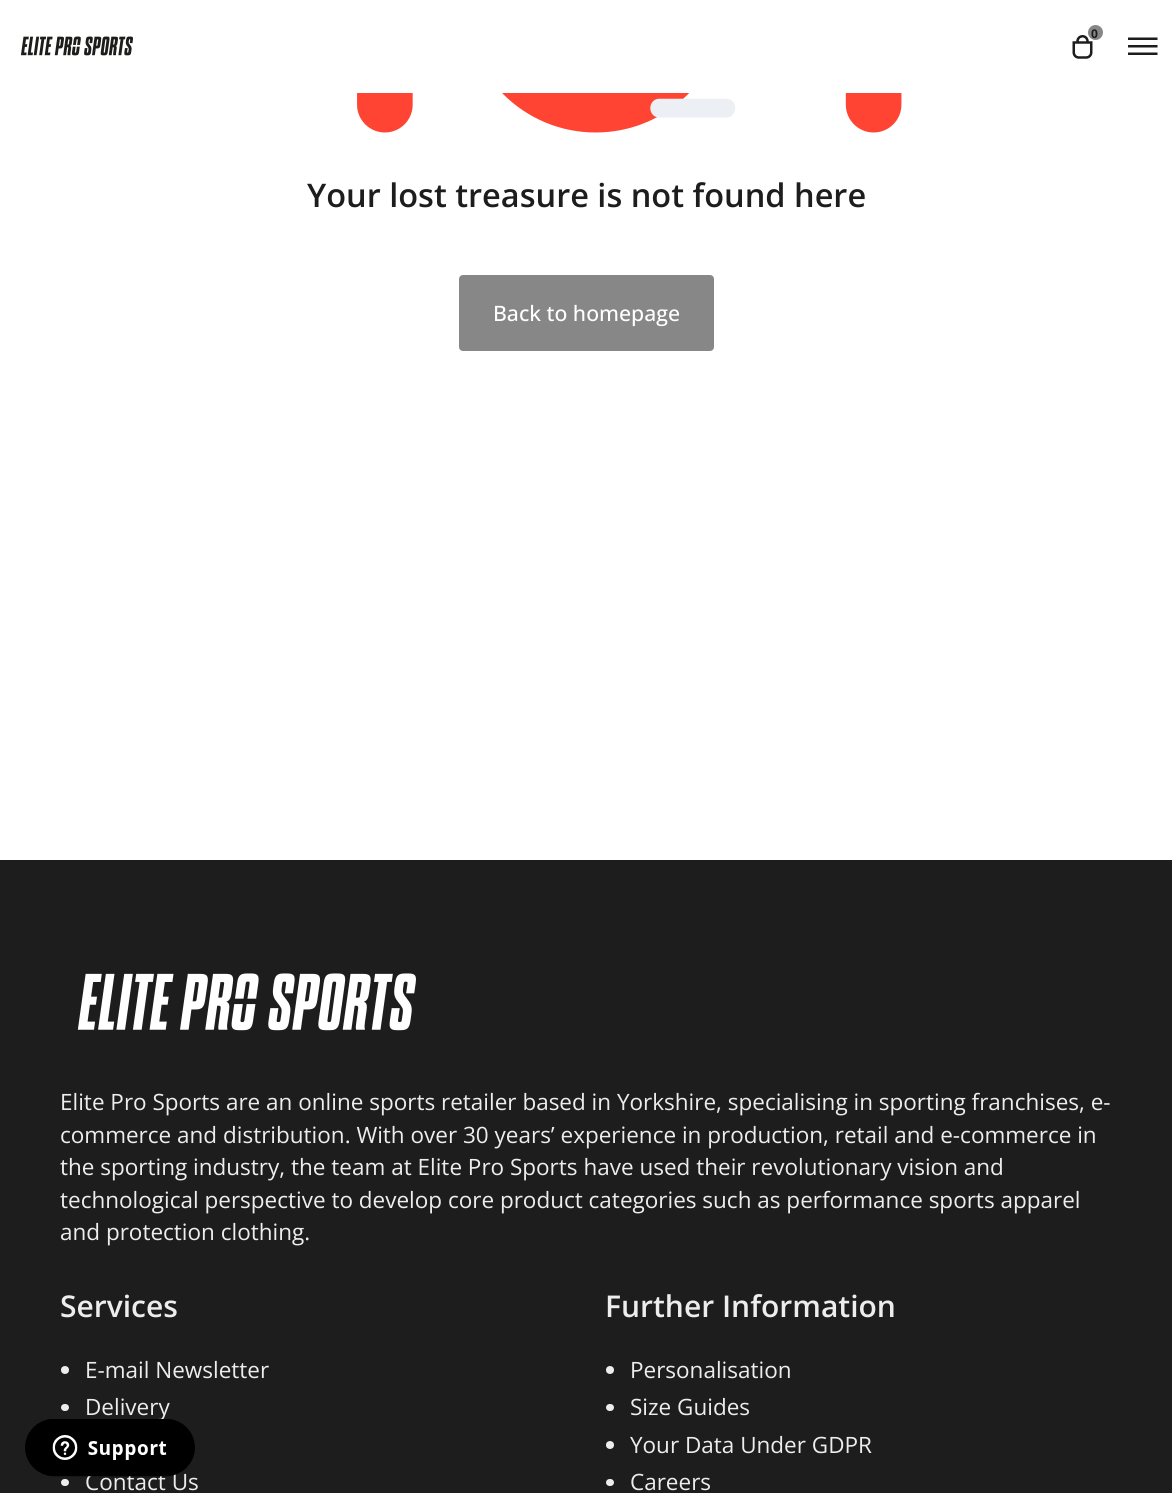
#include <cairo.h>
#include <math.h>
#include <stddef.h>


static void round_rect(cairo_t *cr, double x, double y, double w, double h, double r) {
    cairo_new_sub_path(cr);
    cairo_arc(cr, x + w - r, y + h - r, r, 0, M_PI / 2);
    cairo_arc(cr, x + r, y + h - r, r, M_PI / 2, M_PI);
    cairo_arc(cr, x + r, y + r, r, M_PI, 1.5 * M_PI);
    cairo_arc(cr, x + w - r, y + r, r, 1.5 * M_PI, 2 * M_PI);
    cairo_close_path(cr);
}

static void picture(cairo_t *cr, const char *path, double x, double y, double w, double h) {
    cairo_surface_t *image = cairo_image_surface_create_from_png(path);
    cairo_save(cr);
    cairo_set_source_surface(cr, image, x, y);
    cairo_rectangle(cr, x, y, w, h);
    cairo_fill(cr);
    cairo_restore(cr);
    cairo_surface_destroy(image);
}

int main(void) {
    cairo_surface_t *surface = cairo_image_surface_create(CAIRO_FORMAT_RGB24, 1172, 1493);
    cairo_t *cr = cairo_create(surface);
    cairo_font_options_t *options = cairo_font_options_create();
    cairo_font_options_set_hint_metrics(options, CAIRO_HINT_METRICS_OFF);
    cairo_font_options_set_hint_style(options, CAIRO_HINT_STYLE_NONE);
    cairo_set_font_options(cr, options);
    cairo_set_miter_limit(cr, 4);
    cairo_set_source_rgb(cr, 1, 1, 1);
    cairo_paint(cr);
    picture(cr, "img1.png", 1072, 35, 21, 24);
    cairo_set_source_rgb(cr, 0.529, 0.529, 0.529);
    cairo_arc(cr, 1095.5, 32.5, 7.5, 0, 2 * M_PI);
    cairo_fill(cr);
    cairo_select_font_face(cr, "Open Sans", CAIRO_FONT_SLANT_NORMAL, CAIRO_FONT_WEIGHT_BOLD);
    cairo_set_font_size(cr, 12);
    cairo_set_source_rgb(cr, 0.114, 0.114, 0.114);
    cairo_move_to(cr, 1091, 38);
    cairo_show_text(cr, "0");
    picture(cr, "img2.png", 1128, 37, 30, 18);
    picture(cr, "img3.png", 21, 36, 112, 20);
    picture(cr, "img4.png", 357, 93, 545, 40);
    cairo_select_font_face(cr, "Open Sans SemiBold", CAIRO_FONT_SLANT_NORMAL, CAIRO_FONT_WEIGHT_NORMAL);
    cairo_set_font_size(cr, 32.5);
    cairo_move_to(cr, 307, 207);
    cairo_show_text(cr, "Your lost treasure is not found here");
    cairo_set_source_rgb(cr, 0.529, 0.529, 0.529);
    round_rect(cr, 460.5, 276.5, 252, 73, 2.5);
    cairo_fill_preserve(cr);
    cairo_set_line_width(cr, 3);
    cairo_stroke(cr);
    cairo_select_font_face(cr, "Open Sans Medium", CAIRO_FONT_SLANT_NORMAL, CAIRO_FONT_WEIGHT_NORMAL);
    cairo_set_font_size(cr, 21.25);
    cairo_set_source_rgb(cr, 1, 1, 1);
    cairo_move_to(cr, 493, 321);
    cairo_show_text(cr, "Back to homepage");
    cairo_set_source_rgb(cr, 0.114, 0.114, 0.114);
    cairo_rectangle(cr, 0, 860, 1172, 633);
    cairo_fill(cr);
    picture(cr, "img5.png", 77, 973, 339, 58);
    cairo_select_font_face(cr, "Open Sans", CAIRO_FONT_SLANT_NORMAL, CAIRO_FONT_WEIGHT_NORMAL);
    cairo_set_font_size(cr, 22.5);
    cairo_set_source_rgb(cr, 0.929, 0.929, 0.929);
    cairo_move_to(cr, 60, 1110);
    cairo_show_text(cr, "Elite Pro Sports are an online sports retailer based in Yorkshire, specialising in sporting franchises, e-");
    cairo_move_to(cr, 60, 1143);
    cairo_show_text(cr, "commerce and distribution. With over 30 years’ experience in production, retail and e-commerce in");
    cairo_move_to(cr, 60, 1175);
    cairo_show_text(cr, "the sporting industry, the team at Elite Pro Sports have used their revolutionary vision and");
    cairo_move_to(cr, 60, 1208);
    cairo_show_text(cr, "technological perspective to develop core product categories such as performance sports apparel");
    cairo_move_to(cr, 60, 1240);
    cairo_show_text(cr, "and protection clothing.");
    cairo_select_font_face(cr, "Open Sans SemiBold", CAIRO_FONT_SLANT_NORMAL, CAIRO_FONT_WEIGHT_NORMAL);
    cairo_set_font_size(cr, 30);
    cairo_move_to(cr, 60, 1317);
    cairo_show_text(cr, "Services");
    cairo_new_path(cr);
    cairo_arc(cr, 65, 1370, 4, 0, 2 * M_PI);
    cairo_fill(cr);
    cairo_select_font_face(cr, "Open Sans", CAIRO_FONT_SLANT_NORMAL, CAIRO_FONT_WEIGHT_NORMAL);
    cairo_set_font_size(cr, 22.5);
    cairo_move_to(cr, 85, 1378);
    cairo_show_text(cr, "E-mail Newsletter");
    round_rect(cr, 61, 1404, 8, 7, 3.5);
    cairo_fill(cr);
    cairo_move_to(cr, 85, 1415);
    cairo_show_text(cr, "Delivery");
    round_rect(cr, 61, 1479, 8, 7, 3.5);
    cairo_fill(cr);
    cairo_move_to(cr, 85, 1490);
    cairo_show_text(cr, "Contact Us");
    cairo_select_font_face(cr, "Open Sans SemiBold", CAIRO_FONT_SLANT_NORMAL, CAIRO_FONT_WEIGHT_NORMAL);
    cairo_set_font_size(cr, 30);
    cairo_move_to(cr, 605, 1317);
    cairo_show_text(cr, "Further Information");
    cairo_new_path(cr);
    cairo_arc(cr, 610, 1370, 4, 0, 2 * M_PI);
    cairo_fill(cr);
    cairo_select_font_face(cr, "Open Sans", CAIRO_FONT_SLANT_NORMAL, CAIRO_FONT_WEIGHT_NORMAL);
    cairo_set_font_size(cr, 22.5);
    cairo_move_to(cr, 630, 1378);
    cairo_show_text(cr, "Personalisation");
    round_rect(cr, 606, 1404, 8, 7, 3.5);
    cairo_fill(cr);
    cairo_move_to(cr, 630, 1415);
    cairo_show_text(cr, "Size Guides");
    cairo_new_path(cr);
    cairo_arc(cr, 610, 1445, 4, 0, 2 * M_PI);
    cairo_fill(cr);
    cairo_move_to(cr, 630, 1453);
    cairo_show_text(cr, "Your Data Under GDPR");
    round_rect(cr, 606, 1479, 8, 7, 3.5);
    cairo_fill(cr);
    cairo_move_to(cr, 630, 1490);
    cairo_show_text(cr, "Careers");
    picture(cr, "img6.png", 25, 1419, 170, 58);
    cairo_surface_write_to_png(surface, "page.png");
    cairo_font_options_destroy(options);
    cairo_destroy(cr);
    cairo_surface_destroy(surface);
    return 0;
}
